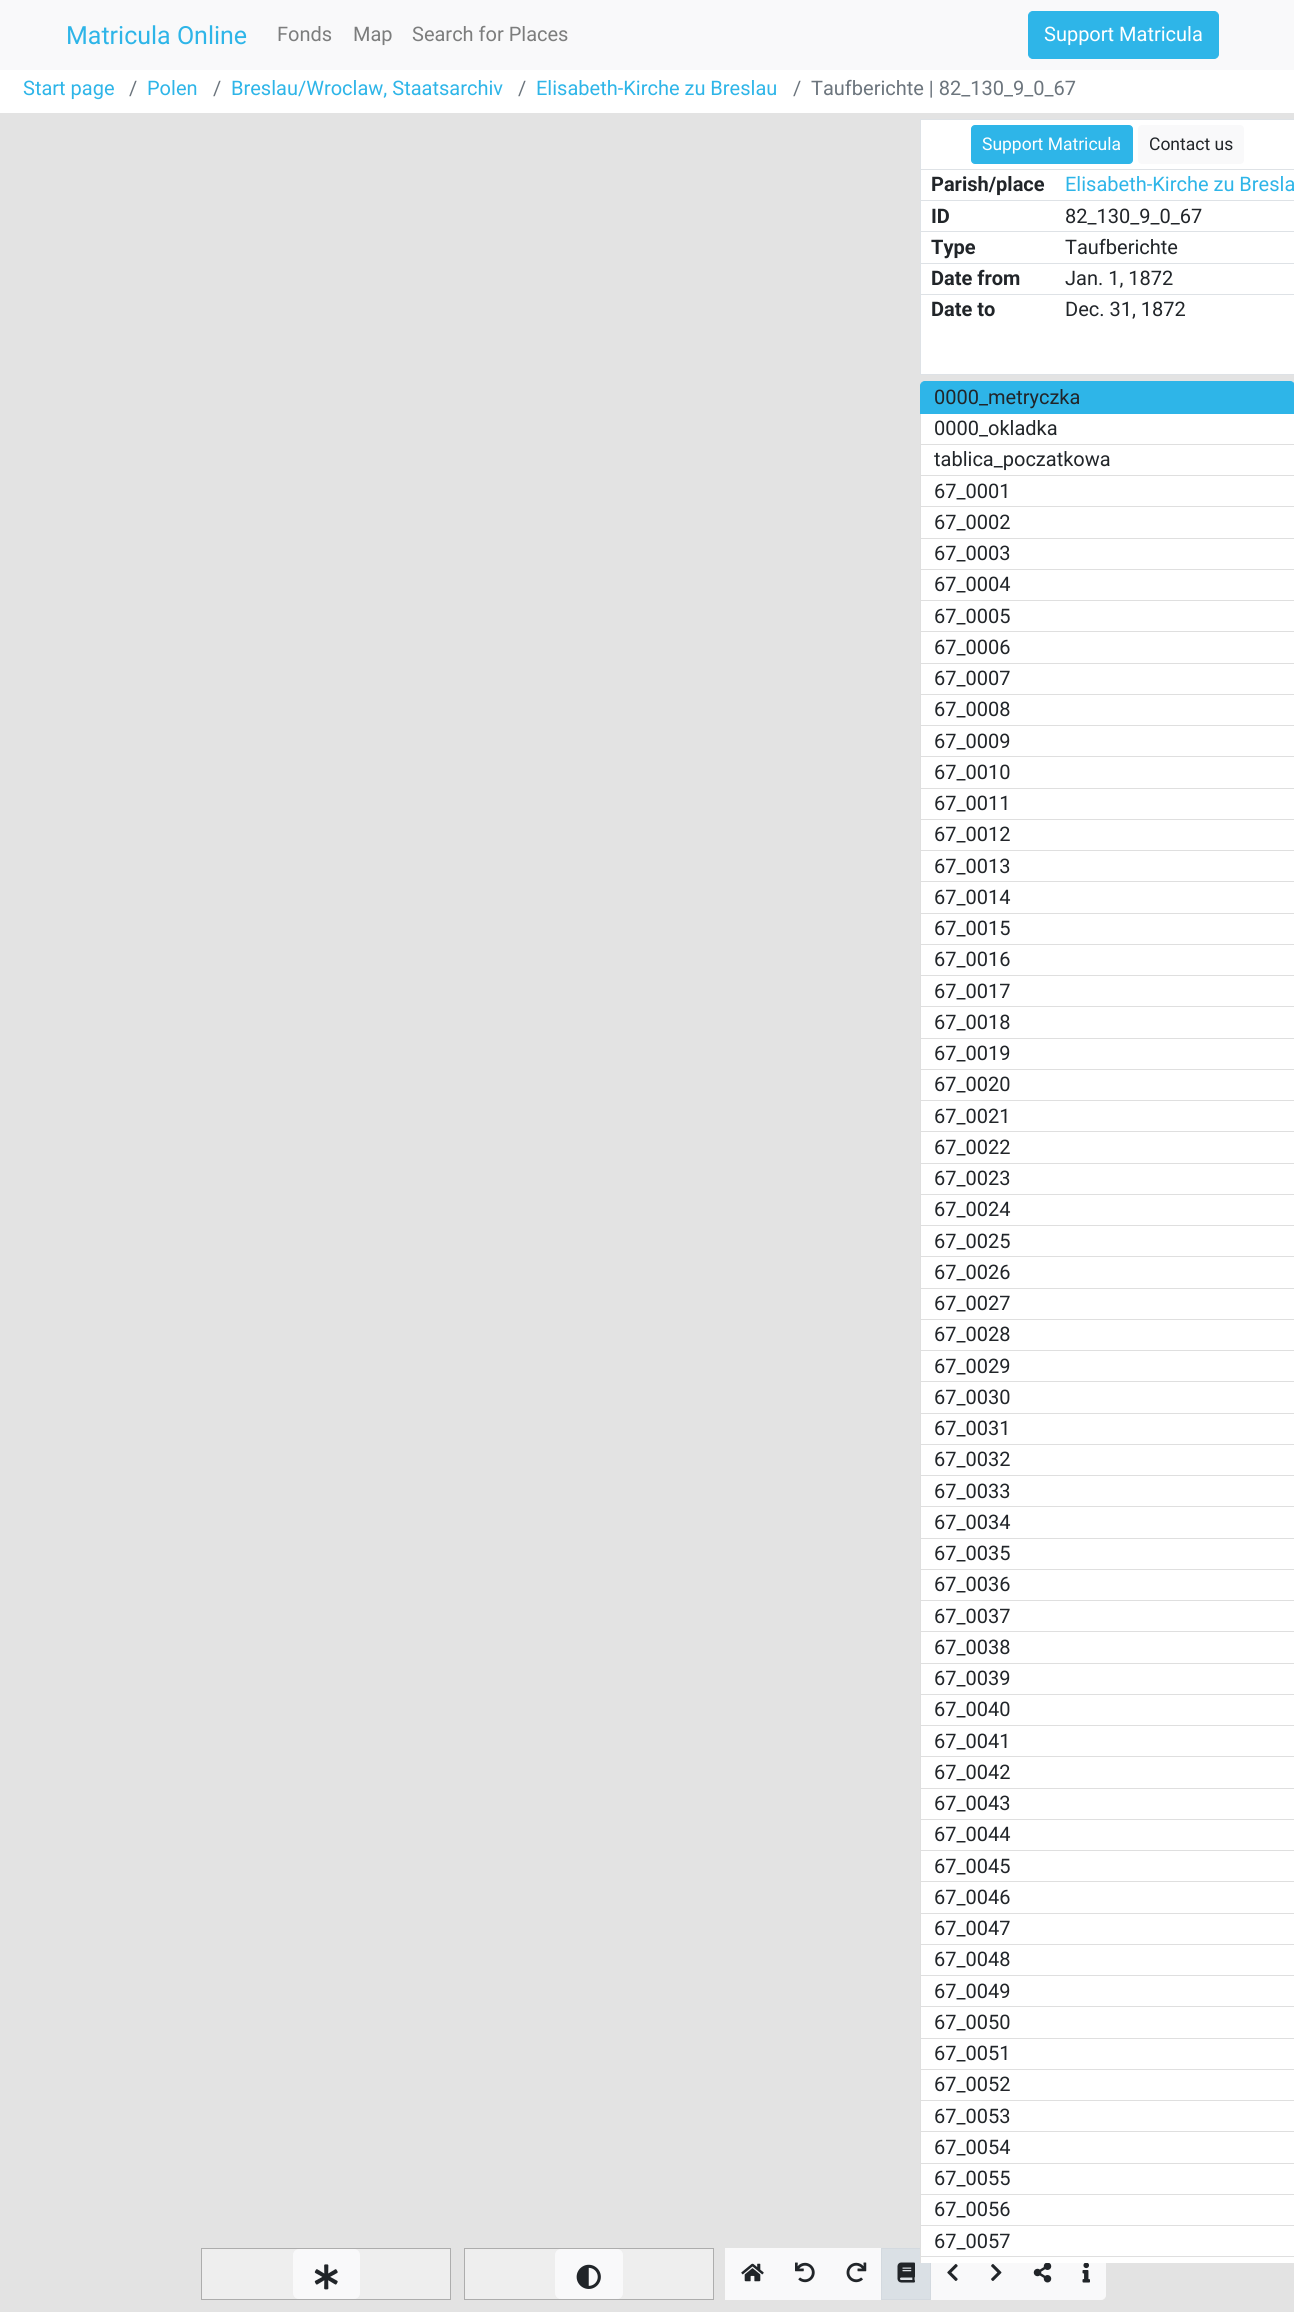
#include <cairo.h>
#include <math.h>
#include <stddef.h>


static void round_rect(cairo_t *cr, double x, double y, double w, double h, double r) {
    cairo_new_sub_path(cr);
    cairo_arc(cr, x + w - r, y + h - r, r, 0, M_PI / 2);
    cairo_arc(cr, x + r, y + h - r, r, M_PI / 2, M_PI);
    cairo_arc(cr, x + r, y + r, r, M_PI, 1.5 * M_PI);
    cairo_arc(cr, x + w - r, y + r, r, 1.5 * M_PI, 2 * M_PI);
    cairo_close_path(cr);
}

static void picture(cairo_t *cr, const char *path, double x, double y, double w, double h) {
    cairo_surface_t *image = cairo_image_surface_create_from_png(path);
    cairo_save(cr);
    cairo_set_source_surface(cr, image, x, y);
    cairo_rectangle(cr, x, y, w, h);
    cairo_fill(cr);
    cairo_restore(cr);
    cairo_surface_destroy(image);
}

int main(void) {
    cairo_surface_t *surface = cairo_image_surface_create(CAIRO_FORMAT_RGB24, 1294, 2312);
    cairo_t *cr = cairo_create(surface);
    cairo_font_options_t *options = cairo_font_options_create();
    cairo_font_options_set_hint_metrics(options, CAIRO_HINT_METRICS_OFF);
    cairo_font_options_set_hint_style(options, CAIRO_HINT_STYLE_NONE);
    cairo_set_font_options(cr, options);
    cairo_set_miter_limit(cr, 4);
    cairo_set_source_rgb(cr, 1, 1, 1);
    cairo_paint(cr);
    cairo_set_source_rgb(cr, 0.973, 0.976, 0.98);
    cairo_rectangle(cr, 0, 0, 1294, 70);
    cairo_fill(cr);
    cairo_select_font_face(cr, "Roboto", CAIRO_FONT_SLANT_NORMAL, CAIRO_FONT_WEIGHT_NORMAL);
    cairo_set_font_size(cr, 25);
    cairo_set_source_rgb(cr, 0.18, 0.71, 0.91);
    cairo_move_to(cr, 66, 44);
    cairo_show_text(cr, "Matricula Online");
    cairo_set_font_size(cr, 20);
    cairo_set_source_rgb(cr, 0.486, 0.49, 0.49);
    cairo_move_to(cr, 277, 41);
    cairo_show_text(cr, "Fonds");
    cairo_move_to(cr, 353, 41);
    cairo_show_text(cr, "Map");
    cairo_move_to(cr, 412, 41);
    cairo_show_text(cr, "Search for Places");
    cairo_set_source_rgb(cr, 0.18, 0.71, 0.91);
    round_rect(cr, 1028.5, 11.5, 190, 47, 4.5);
    cairo_fill_preserve(cr);
    cairo_set_line_width(cr, 1);
    cairo_stroke(cr);
    cairo_set_source_rgb(cr, 1, 1, 1);
    cairo_move_to(cr, 1044, 41);
    cairo_show_text(cr, "Support Matricula");
    cairo_set_source_rgb(cr, 0.18, 0.71, 0.91);
    cairo_move_to(cr, 23, 95);
    cairo_show_text(cr, "Start page");
    cairo_set_source_rgb(cr, 0.424, 0.459, 0.49);
    cairo_move_to(cr, 129, 95);
    cairo_show_text(cr, "/");
    cairo_set_source_rgb(cr, 0.18, 0.71, 0.91);
    cairo_move_to(cr, 147, 95);
    cairo_show_text(cr, "Polen");
    cairo_set_source_rgb(cr, 0.424, 0.459, 0.49);
    cairo_move_to(cr, 213, 95);
    cairo_show_text(cr, "/");
    cairo_set_source_rgb(cr, 0.18, 0.71, 0.91);
    cairo_move_to(cr, 231, 95);
    cairo_show_text(cr, "Breslau/Wroclaw, Staatsarchiv");
    cairo_set_source_rgb(cr, 0.424, 0.459, 0.49);
    cairo_move_to(cr, 518, 95);
    cairo_show_text(cr, "/");
    cairo_set_source_rgb(cr, 0.18, 0.71, 0.91);
    cairo_move_to(cr, 536, 95);
    cairo_show_text(cr, "Elisabeth-Kirche zu Breslau");
    cairo_set_source_rgb(cr, 0.424, 0.459, 0.49);
    cairo_move_to(cr, 793, 95);
    cairo_show_text(cr, "/");
    cairo_move_to(cr, 811, 95);
    cairo_show_text(cr, "Taufberichte | 82_130_9_0_67");
    cairo_set_source_rgb(cr, 0.89, 0.89, 0.89);
    cairo_rectangle(cr, 0, 113, 1294, 2199);
    cairo_fill(cr);
    cairo_set_source_rgb(cr, 1, 1, 1);
    cairo_rectangle(cr, 920.5, 119.5, 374, 255);
    cairo_fill_preserve(cr);
    cairo_set_source_rgb(cr, 0.871, 0.886, 0.902);
    cairo_stroke(cr);
    cairo_set_source_rgb(cr, 0.18, 0.71, 0.91);
    round_rect(cr, 971.5, 125.5, 161, 38, 3.5);
    cairo_fill_preserve(cr);
    cairo_stroke(cr);
    cairo_set_font_size(cr, 17.5);
    cairo_set_source_rgb(cr, 1, 1, 1);
    cairo_move_to(cr, 982, 150);
    cairo_show_text(cr, "Support Matricula");
    cairo_set_source_rgb(cr, 0.973, 0.976, 0.98);
    round_rect(cr, 1138, 125, 106, 39, 4);
    cairo_fill(cr);
    cairo_set_source_rgb(cr, 0.129, 0.145, 0.161);
    cairo_move_to(cr, 1149, 150);
    cairo_show_text(cr, "Contact us");
    cairo_select_font_face(cr, "Roboto", CAIRO_FONT_SLANT_NORMAL, CAIRO_FONT_WEIGHT_BOLD);
    cairo_set_font_size(cr, 20);
    cairo_move_to(cr, 931, 191);
    cairo_show_text(cr, "Parish/place");
    cairo_set_source_rgb(cr, 0.871, 0.886, 0.902);
    cairo_rectangle(cr, 921, 169, 373, 1);
    cairo_fill(cr);
    cairo_select_font_face(cr, "Roboto", CAIRO_FONT_SLANT_NORMAL, CAIRO_FONT_WEIGHT_NORMAL);
    cairo_set_source_rgb(cr, 0.18, 0.71, 0.91);
    cairo_move_to(cr, 1065, 191);
    cairo_show_text(cr, "Elisabeth-Kirche zu Bresla");
    cairo_select_font_face(cr, "Roboto", CAIRO_FONT_SLANT_NORMAL, CAIRO_FONT_WEIGHT_BOLD);
    cairo_set_source_rgb(cr, 0.129, 0.145, 0.161);
    cairo_move_to(cr, 931, 223);
    cairo_show_text(cr, "ID");
    cairo_set_source_rgb(cr, 0.871, 0.886, 0.902);
    cairo_rectangle(cr, 921, 200, 373, 1);
    cairo_fill(cr);
    cairo_select_font_face(cr, "Roboto", CAIRO_FONT_SLANT_NORMAL, CAIRO_FONT_WEIGHT_NORMAL);
    cairo_set_source_rgb(cr, 0.129, 0.145, 0.161);
    cairo_move_to(cr, 1065, 223);
    cairo_show_text(cr, "82_130_9_0_67");
    cairo_select_font_face(cr, "Roboto", CAIRO_FONT_SLANT_NORMAL, CAIRO_FONT_WEIGHT_BOLD);
    cairo_move_to(cr, 931, 254);
    cairo_show_text(cr, "Type");
    cairo_set_source_rgb(cr, 0.871, 0.886, 0.902);
    cairo_rectangle(cr, 921, 231, 373, 1);
    cairo_fill(cr);
    cairo_select_font_face(cr, "Roboto", CAIRO_FONT_SLANT_NORMAL, CAIRO_FONT_WEIGHT_NORMAL);
    cairo_set_source_rgb(cr, 0.129, 0.145, 0.161);
    cairo_move_to(cr, 1065, 254);
    cairo_show_text(cr, "Taufberichte");
    cairo_select_font_face(cr, "Roboto", CAIRO_FONT_SLANT_NORMAL, CAIRO_FONT_WEIGHT_BOLD);
    cairo_move_to(cr, 931, 285);
    cairo_show_text(cr, "Date from");
    cairo_set_source_rgb(cr, 0.871, 0.886, 0.902);
    cairo_rectangle(cr, 921, 263, 373, 1);
    cairo_fill(cr);
    cairo_select_font_face(cr, "Roboto", CAIRO_FONT_SLANT_NORMAL, CAIRO_FONT_WEIGHT_NORMAL);
    cairo_set_source_rgb(cr, 0.129, 0.145, 0.161);
    cairo_move_to(cr, 1065, 285);
    cairo_show_text(cr, "Jan. 1, 1872");
    cairo_select_font_face(cr, "Roboto", CAIRO_FONT_SLANT_NORMAL, CAIRO_FONT_WEIGHT_BOLD);
    cairo_move_to(cr, 931, 316);
    cairo_show_text(cr, "Date to");
    cairo_set_source_rgb(cr, 0.871, 0.886, 0.902);
    cairo_rectangle(cr, 921, 294, 373, 1);
    cairo_fill(cr);
    cairo_select_font_face(cr, "Roboto", CAIRO_FONT_SLANT_NORMAL, CAIRO_FONT_WEIGHT_NORMAL);
    cairo_set_source_rgb(cr, 0.129, 0.145, 0.161);
    cairo_move_to(cr, 1065, 316);
    cairo_show_text(cr, "Dec. 31, 1872");
    cairo_set_source_rgb(cr, 1, 1, 1);
    cairo_rectangle(cr, 920.5, 413.5, 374, 31);
    cairo_fill_preserve(cr);
    cairo_set_source_rgb(cr, 0.875, 0.875, 0.875);
    cairo_stroke(cr);
    cairo_set_source_rgb(cr, 0.18, 0.71, 0.91);
    cairo_new_path(cr);
    cairo_move_to(cr, 925, 381.5);
    cairo_line_to(cr, 1290, 381.5);
    cairo_curve_to(cr, 1292.5, 381.5, 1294.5, 383.5, 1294.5, 386);
    cairo_line_to(cr, 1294.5, 413.5);
    cairo_line_to(cr, 920.5, 413.5);
    cairo_line_to(cr, 920.5, 386);
    cairo_curve_to(cr, 920.5, 383.5, 922.5, 381.5, 925, 381.5);
    cairo_close_path(cr);
    cairo_fill_preserve(cr);
    cairo_stroke(cr);
    cairo_set_source_rgb(cr, 0.129, 0.145, 0.161);
    cairo_move_to(cr, 934, 404);
    cairo_show_text(cr, "0000_metryczka");
    cairo_move_to(cr, 934, 435);
    cairo_show_text(cr, "0000_okladka");
    cairo_set_source_rgb(cr, 1, 1, 1);
    cairo_rectangle(cr, 920.5, 444.5, 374, 31);
    cairo_fill_preserve(cr);
    cairo_set_source_rgb(cr, 0.875, 0.875, 0.875);
    cairo_stroke(cr);
    cairo_set_source_rgb(cr, 0.129, 0.145, 0.161);
    cairo_move_to(cr, 934, 466);
    cairo_show_text(cr, "tablica_poczatkowa");
    cairo_set_source_rgb(cr, 1, 1, 1);
    cairo_rectangle(cr, 921, 476, 373, 30);
    cairo_fill(cr);
    cairo_rectangle(cr, 920.5, 475.5, 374, 32);
    cairo_set_source_rgb(cr, 0.875, 0.875, 0.875);
    cairo_stroke(cr);
    cairo_set_source_rgb(cr, 0.129, 0.145, 0.161);
    cairo_move_to(cr, 934, 498);
    cairo_show_text(cr, "67_0001");
    cairo_set_source_rgb(cr, 1, 1, 1);
    cairo_rectangle(cr, 920.5, 506.5, 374, 32);
    cairo_fill_preserve(cr);
    cairo_set_source_rgb(cr, 0.875, 0.875, 0.875);
    cairo_stroke(cr);
    cairo_set_source_rgb(cr, 0.129, 0.145, 0.161);
    cairo_move_to(cr, 934, 529);
    cairo_show_text(cr, "67_0002");
    cairo_set_source_rgb(cr, 1, 1, 1);
    cairo_rectangle(cr, 920.5, 538.5, 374, 31);
    cairo_fill_preserve(cr);
    cairo_set_source_rgb(cr, 0.875, 0.875, 0.875);
    cairo_stroke(cr);
    cairo_set_source_rgb(cr, 0.129, 0.145, 0.161);
    cairo_move_to(cr, 934, 560);
    cairo_show_text(cr, "67_0003");
    cairo_set_source_rgb(cr, 1, 1, 1);
    cairo_rectangle(cr, 920.5, 569.5, 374, 31);
    cairo_fill_preserve(cr);
    cairo_set_source_rgb(cr, 0.875, 0.875, 0.875);
    cairo_stroke(cr);
    cairo_set_source_rgb(cr, 0.129, 0.145, 0.161);
    cairo_move_to(cr, 934, 591);
    cairo_show_text(cr, "67_0004");
    cairo_set_source_rgb(cr, 1, 1, 1);
    cairo_rectangle(cr, 921, 601, 373, 30);
    cairo_fill(cr);
    cairo_rectangle(cr, 920.5, 600.5, 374, 32);
    cairo_set_source_rgb(cr, 0.875, 0.875, 0.875);
    cairo_stroke(cr);
    cairo_set_source_rgb(cr, 0.129, 0.145, 0.161);
    cairo_move_to(cr, 934, 623);
    cairo_show_text(cr, "67_0005");
    cairo_set_source_rgb(cr, 1, 1, 1);
    cairo_rectangle(cr, 920.5, 631.5, 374, 32);
    cairo_fill_preserve(cr);
    cairo_set_source_rgb(cr, 0.875, 0.875, 0.875);
    cairo_stroke(cr);
    cairo_set_source_rgb(cr, 0.129, 0.145, 0.161);
    cairo_move_to(cr, 934, 654);
    cairo_show_text(cr, "67_0006");
    cairo_set_source_rgb(cr, 1, 1, 1);
    cairo_rectangle(cr, 920.5, 663.5, 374, 31);
    cairo_fill_preserve(cr);
    cairo_set_source_rgb(cr, 0.875, 0.875, 0.875);
    cairo_stroke(cr);
    cairo_set_source_rgb(cr, 0.129, 0.145, 0.161);
    cairo_move_to(cr, 934, 685);
    cairo_show_text(cr, "67_0007");
    cairo_set_source_rgb(cr, 1, 1, 1);
    cairo_rectangle(cr, 920.5, 694.5, 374, 31);
    cairo_fill_preserve(cr);
    cairo_set_source_rgb(cr, 0.875, 0.875, 0.875);
    cairo_stroke(cr);
    cairo_set_source_rgb(cr, 0.129, 0.145, 0.161);
    cairo_move_to(cr, 934, 716);
    cairo_show_text(cr, "67_0008");
    cairo_set_source_rgb(cr, 1, 1, 1);
    cairo_rectangle(cr, 921, 726, 373, 30);
    cairo_fill(cr);
    cairo_rectangle(cr, 920.5, 725.5, 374, 32);
    cairo_set_source_rgb(cr, 0.875, 0.875, 0.875);
    cairo_stroke(cr);
    cairo_set_source_rgb(cr, 0.129, 0.145, 0.161);
    cairo_move_to(cr, 934, 748);
    cairo_show_text(cr, "67_0009");
    cairo_set_source_rgb(cr, 1, 1, 1);
    cairo_rectangle(cr, 920.5, 756.5, 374, 32);
    cairo_fill_preserve(cr);
    cairo_set_source_rgb(cr, 0.875, 0.875, 0.875);
    cairo_stroke(cr);
    cairo_set_source_rgb(cr, 0.129, 0.145, 0.161);
    cairo_move_to(cr, 934, 779);
    cairo_show_text(cr, "67_0010");
    cairo_set_source_rgb(cr, 1, 1, 1);
    cairo_rectangle(cr, 920.5, 788.5, 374, 31);
    cairo_fill_preserve(cr);
    cairo_set_source_rgb(cr, 0.875, 0.875, 0.875);
    cairo_stroke(cr);
    cairo_set_source_rgb(cr, 0.129, 0.145, 0.161);
    cairo_move_to(cr, 934, 810);
    cairo_show_text(cr, "67_0011");
    cairo_set_source_rgb(cr, 1, 1, 1);
    cairo_rectangle(cr, 920.5, 819.5, 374, 31);
    cairo_fill_preserve(cr);
    cairo_set_source_rgb(cr, 0.875, 0.875, 0.875);
    cairo_stroke(cr);
    cairo_set_source_rgb(cr, 0.129, 0.145, 0.161);
    cairo_move_to(cr, 934, 841);
    cairo_show_text(cr, "67_0012");
    cairo_set_source_rgb(cr, 1, 1, 1);
    cairo_rectangle(cr, 921, 851, 373, 30);
    cairo_fill(cr);
    cairo_rectangle(cr, 920.5, 850.5, 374, 32);
    cairo_set_source_rgb(cr, 0.875, 0.875, 0.875);
    cairo_stroke(cr);
    cairo_set_source_rgb(cr, 0.129, 0.145, 0.161);
    cairo_move_to(cr, 934, 873);
    cairo_show_text(cr, "67_0013");
    cairo_set_source_rgb(cr, 1, 1, 1);
    cairo_rectangle(cr, 920.5, 881.5, 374, 32);
    cairo_fill_preserve(cr);
    cairo_set_source_rgb(cr, 0.875, 0.875, 0.875);
    cairo_stroke(cr);
    cairo_set_source_rgb(cr, 0.129, 0.145, 0.161);
    cairo_move_to(cr, 934, 904);
    cairo_show_text(cr, "67_0014");
    cairo_set_source_rgb(cr, 1, 1, 1);
    cairo_rectangle(cr, 920.5, 913.5, 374, 31);
    cairo_fill_preserve(cr);
    cairo_set_source_rgb(cr, 0.875, 0.875, 0.875);
    cairo_stroke(cr);
    cairo_set_source_rgb(cr, 0.129, 0.145, 0.161);
    cairo_move_to(cr, 934, 935);
    cairo_show_text(cr, "67_0015");
    cairo_set_source_rgb(cr, 1, 1, 1);
    cairo_rectangle(cr, 920.5, 944.5, 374, 31);
    cairo_fill_preserve(cr);
    cairo_set_source_rgb(cr, 0.875, 0.875, 0.875);
    cairo_stroke(cr);
    cairo_set_source_rgb(cr, 0.129, 0.145, 0.161);
    cairo_move_to(cr, 934, 966);
    cairo_show_text(cr, "67_0016");
    cairo_set_source_rgb(cr, 1, 1, 1);
    cairo_rectangle(cr, 921, 976, 373, 30);
    cairo_fill(cr);
    cairo_rectangle(cr, 920.5, 975.5, 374, 32);
    cairo_set_source_rgb(cr, 0.875, 0.875, 0.875);
    cairo_stroke(cr);
    cairo_set_source_rgb(cr, 0.129, 0.145, 0.161);
    cairo_move_to(cr, 934, 998);
    cairo_show_text(cr, "67_0017");
    cairo_set_source_rgb(cr, 1, 1, 1);
    cairo_rectangle(cr, 920.5, 1006.5, 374, 32);
    cairo_fill_preserve(cr);
    cairo_set_source_rgb(cr, 0.875, 0.875, 0.875);
    cairo_stroke(cr);
    cairo_set_source_rgb(cr, 0.129, 0.145, 0.161);
    cairo_move_to(cr, 934, 1029);
    cairo_show_text(cr, "67_0018");
    cairo_set_source_rgb(cr, 1, 1, 1);
    cairo_rectangle(cr, 920.5, 1038.5, 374, 31);
    cairo_fill_preserve(cr);
    cairo_set_source_rgb(cr, 0.875, 0.875, 0.875);
    cairo_stroke(cr);
    cairo_set_source_rgb(cr, 0.129, 0.145, 0.161);
    cairo_move_to(cr, 934, 1060);
    cairo_show_text(cr, "67_0019");
    cairo_set_source_rgb(cr, 1, 1, 1);
    cairo_rectangle(cr, 920.5, 1069.5, 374, 31);
    cairo_fill_preserve(cr);
    cairo_set_source_rgb(cr, 0.875, 0.875, 0.875);
    cairo_stroke(cr);
    cairo_set_source_rgb(cr, 0.129, 0.145, 0.161);
    cairo_move_to(cr, 934, 1091);
    cairo_show_text(cr, "67_0020");
    cairo_set_source_rgb(cr, 1, 1, 1);
    cairo_rectangle(cr, 921, 1101, 373, 30);
    cairo_fill(cr);
    cairo_rectangle(cr, 920.5, 1100.5, 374, 32);
    cairo_set_source_rgb(cr, 0.875, 0.875, 0.875);
    cairo_stroke(cr);
    cairo_set_source_rgb(cr, 0.129, 0.145, 0.161);
    cairo_move_to(cr, 934, 1123);
    cairo_show_text(cr, "67_0021");
    cairo_set_source_rgb(cr, 1, 1, 1);
    cairo_rectangle(cr, 920.5, 1131.5, 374, 32);
    cairo_fill_preserve(cr);
    cairo_set_source_rgb(cr, 0.875, 0.875, 0.875);
    cairo_stroke(cr);
    cairo_set_source_rgb(cr, 0.129, 0.145, 0.161);
    cairo_move_to(cr, 934, 1154);
    cairo_show_text(cr, "67_0022");
    cairo_set_source_rgb(cr, 1, 1, 1);
    cairo_rectangle(cr, 920.5, 1163.5, 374, 31);
    cairo_fill_preserve(cr);
    cairo_set_source_rgb(cr, 0.875, 0.875, 0.875);
    cairo_stroke(cr);
    cairo_set_source_rgb(cr, 0.129, 0.145, 0.161);
    cairo_move_to(cr, 934, 1185);
    cairo_show_text(cr, "67_0023");
    cairo_set_source_rgb(cr, 1, 1, 1);
    cairo_rectangle(cr, 920.5, 1194.5, 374, 31);
    cairo_fill_preserve(cr);
    cairo_set_source_rgb(cr, 0.875, 0.875, 0.875);
    cairo_stroke(cr);
    cairo_set_source_rgb(cr, 0.129, 0.145, 0.161);
    cairo_move_to(cr, 934, 1216);
    cairo_show_text(cr, "67_0024");
    cairo_set_source_rgb(cr, 1, 1, 1);
    cairo_rectangle(cr, 921, 1226, 373, 30);
    cairo_fill(cr);
    cairo_rectangle(cr, 920.5, 1225.5, 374, 32);
    cairo_set_source_rgb(cr, 0.875, 0.875, 0.875);
    cairo_stroke(cr);
    cairo_set_source_rgb(cr, 0.129, 0.145, 0.161);
    cairo_move_to(cr, 934, 1248);
    cairo_show_text(cr, "67_0025");
    cairo_set_source_rgb(cr, 1, 1, 1);
    cairo_rectangle(cr, 920.5, 1256.5, 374, 32);
    cairo_fill_preserve(cr);
    cairo_set_source_rgb(cr, 0.875, 0.875, 0.875);
    cairo_stroke(cr);
    cairo_set_source_rgb(cr, 0.129, 0.145, 0.161);
    cairo_move_to(cr, 934, 1279);
    cairo_show_text(cr, "67_0026");
    cairo_set_source_rgb(cr, 1, 1, 1);
    cairo_rectangle(cr, 920.5, 1288.5, 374, 31);
    cairo_fill_preserve(cr);
    cairo_set_source_rgb(cr, 0.875, 0.875, 0.875);
    cairo_stroke(cr);
    cairo_set_source_rgb(cr, 0.129, 0.145, 0.161);
    cairo_move_to(cr, 934, 1310);
    cairo_show_text(cr, "67_0027");
    cairo_set_source_rgb(cr, 1, 1, 1);
    cairo_rectangle(cr, 920.5, 1319.5, 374, 31);
    cairo_fill_preserve(cr);
    cairo_set_source_rgb(cr, 0.875, 0.875, 0.875);
    cairo_stroke(cr);
    cairo_set_source_rgb(cr, 0.129, 0.145, 0.161);
    cairo_move_to(cr, 934, 1341);
    cairo_show_text(cr, "67_0028");
    cairo_set_source_rgb(cr, 1, 1, 1);
    cairo_rectangle(cr, 921, 1351, 373, 30);
    cairo_fill(cr);
    cairo_rectangle(cr, 920.5, 1350.5, 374, 32);
    cairo_set_source_rgb(cr, 0.875, 0.875, 0.875);
    cairo_stroke(cr);
    cairo_set_source_rgb(cr, 0.129, 0.145, 0.161);
    cairo_move_to(cr, 934, 1373);
    cairo_show_text(cr, "67_0029");
    cairo_set_source_rgb(cr, 1, 1, 1);
    cairo_rectangle(cr, 920.5, 1381.5, 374, 32);
    cairo_fill_preserve(cr);
    cairo_set_source_rgb(cr, 0.875, 0.875, 0.875);
    cairo_stroke(cr);
    cairo_set_source_rgb(cr, 0.129, 0.145, 0.161);
    cairo_move_to(cr, 934, 1404);
    cairo_show_text(cr, "67_0030");
    cairo_set_source_rgb(cr, 1, 1, 1);
    cairo_rectangle(cr, 920.5, 1413.5, 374, 31);
    cairo_fill_preserve(cr);
    cairo_set_source_rgb(cr, 0.875, 0.875, 0.875);
    cairo_stroke(cr);
    cairo_set_source_rgb(cr, 0.129, 0.145, 0.161);
    cairo_move_to(cr, 934, 1435);
    cairo_show_text(cr, "67_0031");
    cairo_set_source_rgb(cr, 1, 1, 1);
    cairo_rectangle(cr, 920.5, 1444.5, 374, 31);
    cairo_fill_preserve(cr);
    cairo_set_source_rgb(cr, 0.875, 0.875, 0.875);
    cairo_stroke(cr);
    cairo_set_source_rgb(cr, 0.129, 0.145, 0.161);
    cairo_move_to(cr, 934, 1466);
    cairo_show_text(cr, "67_0032");
    cairo_set_source_rgb(cr, 1, 1, 1);
    cairo_rectangle(cr, 921, 1476, 373, 30);
    cairo_fill(cr);
    cairo_rectangle(cr, 920.5, 1475.5, 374, 32);
    cairo_set_source_rgb(cr, 0.875, 0.875, 0.875);
    cairo_stroke(cr);
    cairo_set_source_rgb(cr, 0.129, 0.145, 0.161);
    cairo_move_to(cr, 934, 1498);
    cairo_show_text(cr, "67_0033");
    cairo_set_source_rgb(cr, 1, 1, 1);
    cairo_rectangle(cr, 920.5, 1506.5, 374, 32);
    cairo_fill_preserve(cr);
    cairo_set_source_rgb(cr, 0.875, 0.875, 0.875);
    cairo_stroke(cr);
    cairo_set_source_rgb(cr, 0.129, 0.145, 0.161);
    cairo_move_to(cr, 934, 1529);
    cairo_show_text(cr, "67_0034");
    cairo_set_source_rgb(cr, 1, 1, 1);
    cairo_rectangle(cr, 920.5, 1538.5, 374, 31);
    cairo_fill_preserve(cr);
    cairo_set_source_rgb(cr, 0.875, 0.875, 0.875);
    cairo_stroke(cr);
    cairo_set_source_rgb(cr, 0.129, 0.145, 0.161);
    cairo_move_to(cr, 934, 1560);
    cairo_show_text(cr, "67_0035");
    cairo_set_source_rgb(cr, 1, 1, 1);
    cairo_rectangle(cr, 920.5, 1569.5, 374, 31);
    cairo_fill_preserve(cr);
    cairo_set_source_rgb(cr, 0.875, 0.875, 0.875);
    cairo_stroke(cr);
    cairo_set_source_rgb(cr, 0.129, 0.145, 0.161);
    cairo_move_to(cr, 934, 1591);
    cairo_show_text(cr, "67_0036");
    cairo_set_source_rgb(cr, 1, 1, 1);
    cairo_rectangle(cr, 921, 1601, 373, 30);
    cairo_fill(cr);
    cairo_rectangle(cr, 920.5, 1600.5, 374, 32);
    cairo_set_source_rgb(cr, 0.875, 0.875, 0.875);
    cairo_stroke(cr);
    cairo_set_source_rgb(cr, 0.129, 0.145, 0.161);
    cairo_move_to(cr, 934, 1623);
    cairo_show_text(cr, "67_0037");
    cairo_set_source_rgb(cr, 1, 1, 1);
    cairo_rectangle(cr, 920.5, 1631.5, 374, 32);
    cairo_fill_preserve(cr);
    cairo_set_source_rgb(cr, 0.875, 0.875, 0.875);
    cairo_stroke(cr);
    cairo_set_source_rgb(cr, 0.129, 0.145, 0.161);
    cairo_move_to(cr, 934, 1654);
    cairo_show_text(cr, "67_0038");
    cairo_set_source_rgb(cr, 1, 1, 1);
    cairo_rectangle(cr, 920.5, 1663.5, 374, 31);
    cairo_fill_preserve(cr);
    cairo_set_source_rgb(cr, 0.875, 0.875, 0.875);
    cairo_stroke(cr);
    cairo_set_source_rgb(cr, 0.129, 0.145, 0.161);
    cairo_move_to(cr, 934, 1685);
    cairo_show_text(cr, "67_0039");
    cairo_set_source_rgb(cr, 1, 1, 1);
    cairo_rectangle(cr, 920.5, 1694.5, 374, 31);
    cairo_fill_preserve(cr);
    cairo_set_source_rgb(cr, 0.875, 0.875, 0.875);
    cairo_stroke(cr);
    cairo_set_source_rgb(cr, 0.129, 0.145, 0.161);
    cairo_move_to(cr, 934, 1716);
    cairo_show_text(cr, "67_0040");
    cairo_set_source_rgb(cr, 1, 1, 1);
    cairo_rectangle(cr, 921, 1726, 373, 30);
    cairo_fill(cr);
    cairo_rectangle(cr, 920.5, 1725.5, 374, 32);
    cairo_set_source_rgb(cr, 0.875, 0.875, 0.875);
    cairo_stroke(cr);
    cairo_set_source_rgb(cr, 0.129, 0.145, 0.161);
    cairo_move_to(cr, 934, 1748);
    cairo_show_text(cr, "67_0041");
    cairo_set_source_rgb(cr, 1, 1, 1);
    cairo_rectangle(cr, 920.5, 1756.5, 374, 32);
    cairo_fill_preserve(cr);
    cairo_set_source_rgb(cr, 0.875, 0.875, 0.875);
    cairo_stroke(cr);
    cairo_set_source_rgb(cr, 0.129, 0.145, 0.161);
    cairo_move_to(cr, 934, 1779);
    cairo_show_text(cr, "67_0042");
    cairo_set_source_rgb(cr, 1, 1, 1);
    cairo_rectangle(cr, 920.5, 1788.5, 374, 31);
    cairo_fill_preserve(cr);
    cairo_set_source_rgb(cr, 0.875, 0.875, 0.875);
    cairo_stroke(cr);
    cairo_set_source_rgb(cr, 0.129, 0.145, 0.161);
    cairo_move_to(cr, 934, 1810);
    cairo_show_text(cr, "67_0043");
    cairo_set_source_rgb(cr, 1, 1, 1);
    cairo_rectangle(cr, 920.5, 1819.5, 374, 31);
    cairo_fill_preserve(cr);
    cairo_set_source_rgb(cr, 0.875, 0.875, 0.875);
    cairo_stroke(cr);
    cairo_set_source_rgb(cr, 0.129, 0.145, 0.161);
    cairo_move_to(cr, 934, 1841);
    cairo_show_text(cr, "67_0044");
    cairo_set_source_rgb(cr, 1, 1, 1);
    cairo_rectangle(cr, 921, 1851, 373, 30);
    cairo_fill(cr);
    cairo_rectangle(cr, 920.5, 1850.5, 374, 32);
    cairo_set_source_rgb(cr, 0.875, 0.875, 0.875);
    cairo_stroke(cr);
    cairo_set_source_rgb(cr, 0.129, 0.145, 0.161);
    cairo_move_to(cr, 934, 1873);
    cairo_show_text(cr, "67_0045");
    cairo_set_source_rgb(cr, 1, 1, 1);
    cairo_rectangle(cr, 920.5, 1881.5, 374, 32);
    cairo_fill_preserve(cr);
    cairo_set_source_rgb(cr, 0.875, 0.875, 0.875);
    cairo_stroke(cr);
    cairo_set_source_rgb(cr, 0.129, 0.145, 0.161);
    cairo_move_to(cr, 934, 1904);
    cairo_show_text(cr, "67_0046");
    cairo_set_source_rgb(cr, 1, 1, 1);
    cairo_rectangle(cr, 920.5, 1913.5, 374, 31);
    cairo_fill_preserve(cr);
    cairo_set_source_rgb(cr, 0.875, 0.875, 0.875);
    cairo_stroke(cr);
    cairo_set_source_rgb(cr, 0.129, 0.145, 0.161);
    cairo_move_to(cr, 934, 1935);
    cairo_show_text(cr, "67_0047");
    cairo_set_source_rgb(cr, 1, 1, 1);
    cairo_rectangle(cr, 920.5, 1944.5, 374, 31);
    cairo_fill_preserve(cr);
    cairo_set_source_rgb(cr, 0.875, 0.875, 0.875);
    cairo_stroke(cr);
    cairo_set_source_rgb(cr, 0.129, 0.145, 0.161);
    cairo_move_to(cr, 934, 1966);
    cairo_show_text(cr, "67_0048");
    cairo_set_source_rgb(cr, 1, 1, 1);
    cairo_rectangle(cr, 921, 1976, 373, 30);
    cairo_fill(cr);
    cairo_rectangle(cr, 920.5, 1975.5, 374, 32);
    cairo_set_source_rgb(cr, 0.875, 0.875, 0.875);
    cairo_stroke(cr);
    cairo_set_source_rgb(cr, 0.129, 0.145, 0.161);
    cairo_move_to(cr, 934, 1998);
    cairo_show_text(cr, "67_0049");
    cairo_set_source_rgb(cr, 1, 1, 1);
    cairo_rectangle(cr, 920.5, 2006.5, 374, 32);
    cairo_fill_preserve(cr);
    cairo_set_source_rgb(cr, 0.875, 0.875, 0.875);
    cairo_stroke(cr);
    cairo_set_source_rgb(cr, 0.129, 0.145, 0.161);
    cairo_move_to(cr, 934, 2029);
    cairo_show_text(cr, "67_0050");
    cairo_set_source_rgb(cr, 1, 1, 1);
    cairo_rectangle(cr, 920.5, 2038.5, 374, 31);
    cairo_fill_preserve(cr);
    cairo_set_source_rgb(cr, 0.875, 0.875, 0.875);
    cairo_stroke(cr);
    cairo_set_source_rgb(cr, 0.129, 0.145, 0.161);
    cairo_move_to(cr, 934, 2060);
    cairo_show_text(cr, "67_0051");
    cairo_set_source_rgb(cr, 1, 1, 1);
    cairo_rectangle(cr, 920.5, 2069.5, 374, 31);
    cairo_fill_preserve(cr);
    cairo_set_source_rgb(cr, 0.875, 0.875, 0.875);
    cairo_stroke(cr);
    cairo_set_source_rgb(cr, 0.129, 0.145, 0.161);
    cairo_move_to(cr, 934, 2091);
    cairo_show_text(cr, "67_0052");
    cairo_set_source_rgb(cr, 1, 1, 1);
    cairo_rectangle(cr, 921, 2101, 373, 30);
    cairo_fill(cr);
    cairo_rectangle(cr, 920.5, 2100.5, 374, 32);
    cairo_set_source_rgb(cr, 0.875, 0.875, 0.875);
    cairo_stroke(cr);
    cairo_set_source_rgb(cr, 0.129, 0.145, 0.161);
    cairo_move_to(cr, 934, 2123);
    cairo_show_text(cr, "67_0053");
    cairo_set_source_rgb(cr, 1, 1, 1);
    cairo_rectangle(cr, 920.5, 2131.5, 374, 32);
    cairo_fill_preserve(cr);
    cairo_set_source_rgb(cr, 0.875, 0.875, 0.875);
    cairo_stroke(cr);
    cairo_set_source_rgb(cr, 0.129, 0.145, 0.161);
    cairo_move_to(cr, 934, 2154);
    cairo_show_text(cr, "67_0054");
    cairo_set_source_rgb(cr, 1, 1, 1);
    cairo_rectangle(cr, 920.5, 2163.5, 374, 31);
    cairo_fill_preserve(cr);
    cairo_set_source_rgb(cr, 0.875, 0.875, 0.875);
    cairo_stroke(cr);
    cairo_set_source_rgb(cr, 0.129, 0.145, 0.161);
    cairo_move_to(cr, 934, 2185);
    cairo_show_text(cr, "67_0055");
    cairo_set_source_rgb(cr, 1, 1, 1);
    cairo_rectangle(cr, 920.5, 2194.5, 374, 31);
    cairo_fill_preserve(cr);
    cairo_set_source_rgb(cr, 0.875, 0.875, 0.875);
    cairo_stroke(cr);
    cairo_set_source_rgb(cr, 0.129, 0.145, 0.161);
    cairo_move_to(cr, 934, 2216);
    cairo_show_text(cr, "67_0056");
    cairo_set_source_rgb(cr, 0.855, 0.878, 0.898);
    cairo_rectangle(cr, 881.5, 2248.5, 49, 51);
    cairo_fill_preserve(cr);
    cairo_set_source_rgb(cr, 0.827, 0.851, 0.875);
    cairo_stroke(cr);
    cairo_set_source_rgb(cr, 0.973, 0.976, 0.98);
    cairo_new_path(cr);
    cairo_move_to(cr, 1066.5, 2248.5);
    cairo_line_to(cr, 1101, 2248.5);
    cairo_curve_to(cr, 1103.5, 2248.5, 1105.5, 2250.5, 1105.5, 2253);
    cairo_line_to(cr, 1105.5, 2295);
    cairo_curve_to(cr, 1105.5, 2297.5, 1103.5, 2299.5, 1101, 2299.5);
    cairo_line_to(cr, 1066.5, 2299.5);
    cairo_close_path(cr);
    cairo_fill_preserve(cr);
    cairo_stroke(cr);
    cairo_set_source_rgb(cr, 1, 1, 1);
    cairo_rectangle(cr, 921, 2226, 373, 30);
    cairo_fill(cr);
    cairo_rectangle(cr, 920.5, 2225.5, 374, 32);
    cairo_set_source_rgb(cr, 0.875, 0.875, 0.875);
    cairo_stroke(cr);
    cairo_set_source_rgb(cr, 0.129, 0.145, 0.161);
    cairo_move_to(cr, 934, 2248);
    cairo_show_text(cr, "67_0057");
    cairo_set_source_rgb(cr, 1, 1, 1);
    cairo_rectangle(cr, 920, 2257, 374, 6);
    cairo_fill(cr);
    picture(cr, "img5.png", 1082, 2263, 8, 20);
    cairo_set_source_rgb(cr, 0.973, 0.976, 0.98);
    cairo_rectangle(cr, 931, 2263, 135, 37);
    cairo_fill(cr);
    picture(cr, "img8.png", 947, 2264, 11, 17);
    picture(cr, "img9.png", 991, 2264, 11, 17);
    picture(cr, "img10.png", 1033, 2263, 19, 20);
    cairo_save(cr);
    cairo_rectangle(cr, 920, 381, 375, 1882);
    cairo_clip(cr);
    cairo_rectangle(cr, 920.5, 2256.5, 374, 32);
    cairo_set_source_rgb(cr, 0.875, 0.875, 0.875);
    cairo_stroke(cr);
    cairo_restore(cr);
    cairo_set_source_rgb(cr, 0.933, 0.933, 0.933);
    cairo_rectangle(cr, 201.5, 2248.5, 249, 51);
    cairo_fill_preserve(cr);
    cairo_set_source_rgb(cr, 0.678, 0.678, 0.678);
    cairo_stroke(cr);
    cairo_set_source_rgb(cr, 0.973, 0.976, 0.98);
    round_rect(cr, 293.5, 2249.5, 66, 49, 5.5);
    cairo_fill_preserve(cr);
    cairo_stroke(cr);
    picture(cr, "img1.png", 314, 2264, 24, 26);
    cairo_set_source_rgb(cr, 0.933, 0.933, 0.933);
    cairo_rectangle(cr, 464.5, 2248.5, 249, 51);
    cairo_fill_preserve(cr);
    cairo_set_source_rgb(cr, 0.678, 0.678, 0.678);
    cairo_stroke(cr);
    cairo_set_source_rgb(cr, 0.973, 0.976, 0.98);
    round_rect(cr, 555.5, 2249.5, 67, 49, 5.5);
    cairo_fill_preserve(cr);
    cairo_stroke(cr);
    picture(cr, "img2.png", 576, 2264, 25, 25);
    cairo_rectangle(cr, 725, 2248, 156, 52);
    cairo_fill(cr);
    picture(cr, "img3.png", 741, 2263, 23, 19);
    picture(cr, "img4.png", 897, 2262, 18, 21);
    picture(cr, "img6.png", 795, 2262, 20, 21);
    picture(cr, "img7.png", 846, 2262, 21, 21);
    cairo_surface_write_to_png(surface, "page.png");
    cairo_font_options_destroy(options);
    cairo_destroy(cr);
    cairo_surface_destroy(surface);
    return 0;
}
